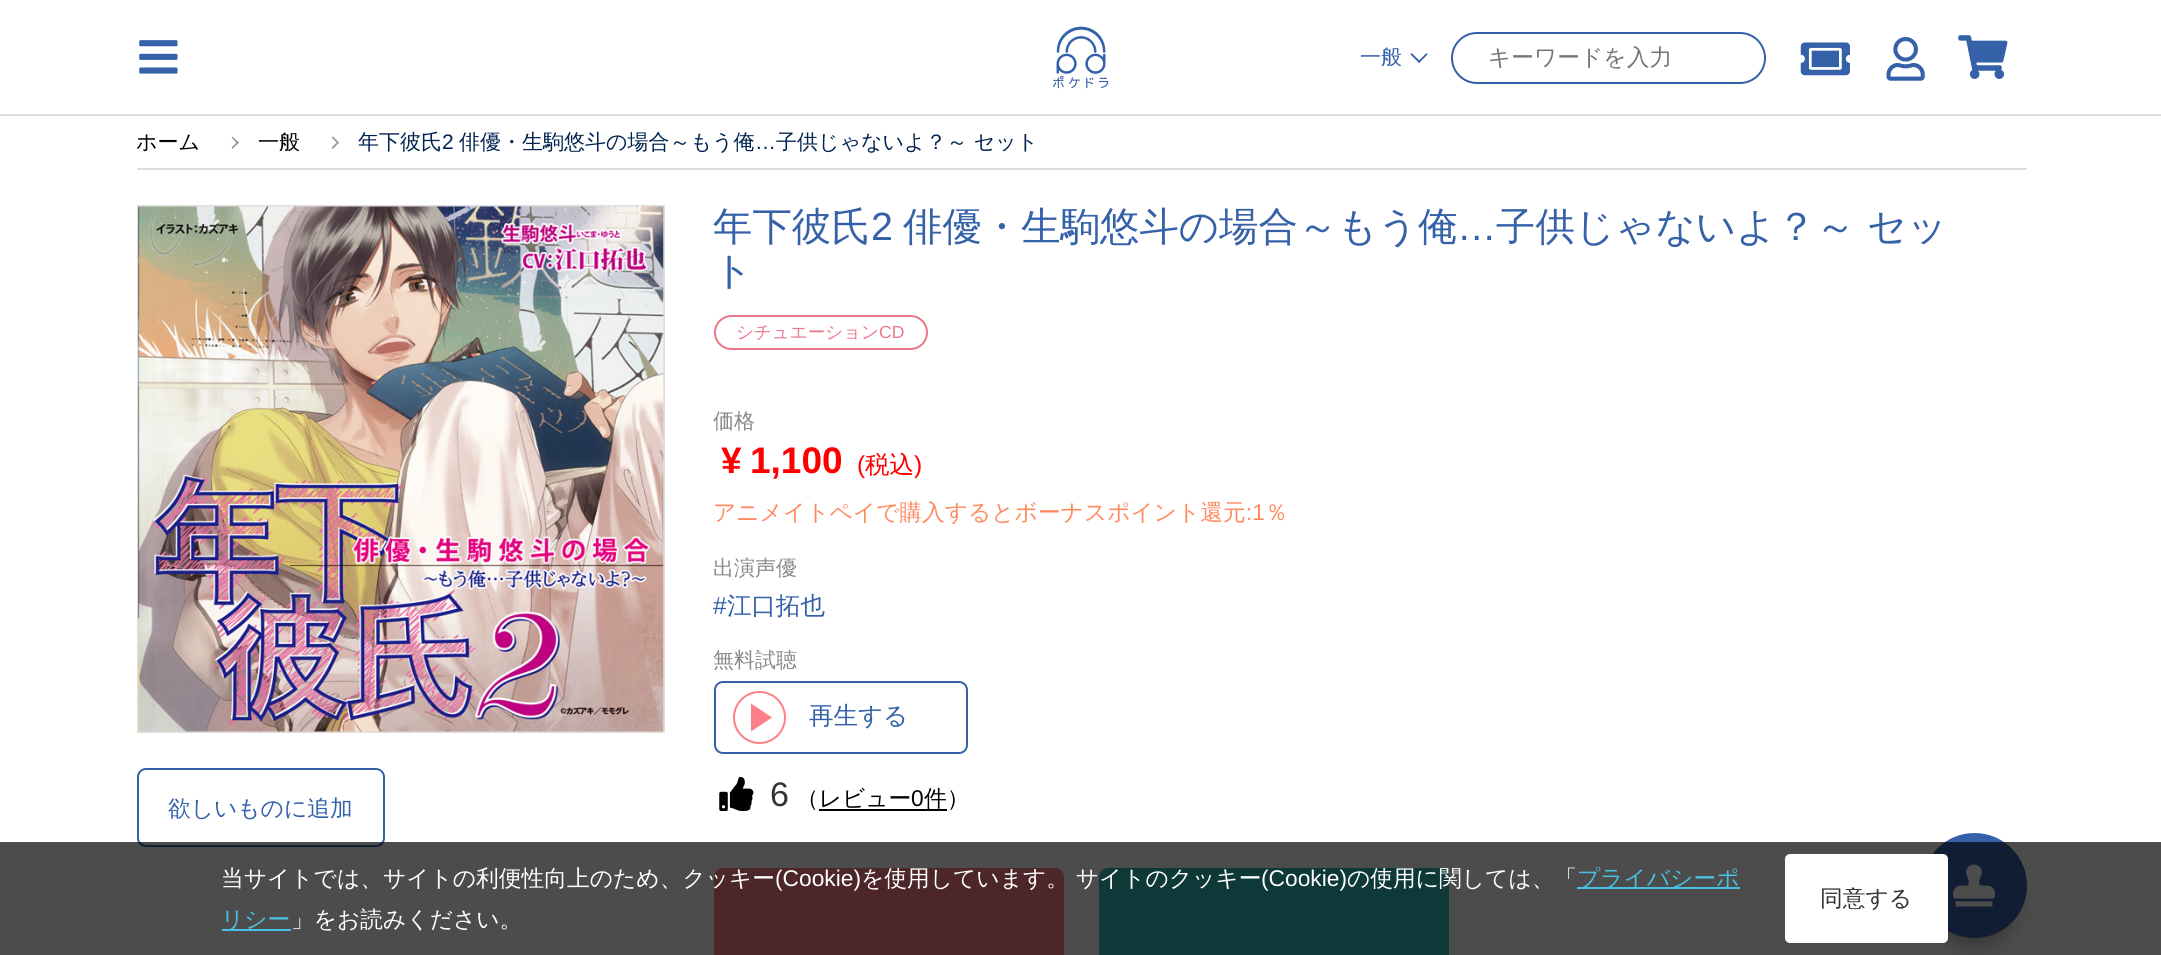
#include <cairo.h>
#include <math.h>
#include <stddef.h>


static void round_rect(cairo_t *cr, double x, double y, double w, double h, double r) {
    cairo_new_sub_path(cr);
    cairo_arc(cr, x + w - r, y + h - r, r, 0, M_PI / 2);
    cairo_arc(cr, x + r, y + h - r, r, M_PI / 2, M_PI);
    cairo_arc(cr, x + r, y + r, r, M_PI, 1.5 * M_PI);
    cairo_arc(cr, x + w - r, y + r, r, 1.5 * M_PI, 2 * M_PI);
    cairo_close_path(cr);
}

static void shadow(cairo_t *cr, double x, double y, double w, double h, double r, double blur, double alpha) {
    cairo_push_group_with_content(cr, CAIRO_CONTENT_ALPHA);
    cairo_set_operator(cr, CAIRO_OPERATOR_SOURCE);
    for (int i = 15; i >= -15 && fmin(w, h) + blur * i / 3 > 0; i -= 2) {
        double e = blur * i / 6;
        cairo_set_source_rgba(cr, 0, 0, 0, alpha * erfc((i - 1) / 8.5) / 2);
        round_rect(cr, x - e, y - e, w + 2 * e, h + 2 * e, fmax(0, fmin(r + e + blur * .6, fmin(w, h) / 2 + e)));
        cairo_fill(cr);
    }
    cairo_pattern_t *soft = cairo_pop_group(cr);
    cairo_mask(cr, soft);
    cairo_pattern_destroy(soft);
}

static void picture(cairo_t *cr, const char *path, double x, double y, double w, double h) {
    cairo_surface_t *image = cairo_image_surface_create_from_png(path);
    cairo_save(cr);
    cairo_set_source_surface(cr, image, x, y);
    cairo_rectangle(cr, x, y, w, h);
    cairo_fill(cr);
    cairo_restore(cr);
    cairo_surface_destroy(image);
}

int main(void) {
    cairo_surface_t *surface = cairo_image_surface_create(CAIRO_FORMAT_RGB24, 2161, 955);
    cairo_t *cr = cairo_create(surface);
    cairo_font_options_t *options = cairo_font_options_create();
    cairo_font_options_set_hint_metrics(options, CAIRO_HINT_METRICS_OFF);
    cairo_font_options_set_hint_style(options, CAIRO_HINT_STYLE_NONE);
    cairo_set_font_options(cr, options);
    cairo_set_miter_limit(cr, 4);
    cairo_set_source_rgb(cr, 1, 1, 1);
    cairo_paint(cr);
    cairo_set_source_rgb(cr, 0.871, 0.871, 0.871);
    cairo_rectangle(cr, 0, 114, 2161, 2);
    cairo_fill(cr);
    picture(cr, "img1.png", 139, 40, 39, 34);
    picture(cr, "img2.png", 1053, 26, 56, 63);
    cairo_select_font_face(cr, "WenQuanYi Zen Hei Medium", CAIRO_FONT_SLANT_NORMAL, CAIRO_FONT_WEIGHT_NORMAL);
    cairo_set_font_size(cr, 21);
    cairo_set_source_rgb(cr, 0.208, 0.38, 0.663);
    cairo_move_to(cr, 1360, 64);
    cairo_show_text(cr, "一般");
    cairo_new_path(cr);
    cairo_move_to(cr, 1427.5, 54.5);
    cairo_line_to(cr, 1419, 63);
    cairo_line_to(cr, 1418, 61.5);
    cairo_line_to(cr, 1426.5, 53);
    cairo_close_path(cr);
    cairo_fill(cr);
    cairo_new_path(cr);
    cairo_move_to(cr, 1420.5, 61.5);
    cairo_line_to(cr, 1419, 63);
    cairo_line_to(cr, 1410.5, 54.5);
    cairo_line_to(cr, 1411.5, 53);
    cairo_close_path(cr);
    cairo_fill(cr);
    round_rect(cr, 1452, 33, 313, 50, 25);
    cairo_stroke(cr);
    cairo_set_font_size(cr, 22.75);
    cairo_set_source_rgb(cr, 0.459, 0.459, 0.459);
    cairo_move_to(cr, 1488, 65);
    cairo_show_text(cr, "キーワードを入力");
    picture(cr, "img3.png", 1800, 42, 50, 34);
    picture(cr, "img4.png", 1886, 37, 39, 44);
    picture(cr, "img5.png", 1958, 35, 50, 44);
    cairo_set_source_rgb(cr, 0.871, 0.871, 0.871);
    cairo_rectangle(cr, 137, 168, 1890, 2);
    cairo_fill(cr);
    cairo_set_font_size(cr, 21);
    cairo_set_source_rgb(cr, 0, 0, 0);
    cairo_move_to(cr, 136, 149);
    cairo_show_text(cr, "ホーム");
    cairo_set_source_rgb(cr, 0.604, 0.604, 0.604);
    cairo_new_path(cr);
    cairo_move_to(cr, 232.5, 136.5);
    cairo_line_to(cr, 239, 142.5);
    cairo_line_to(cr, 237.5, 144);
    cairo_line_to(cr, 231.5, 137.5);
    cairo_close_path(cr);
    cairo_fill(cr);
    cairo_new_path(cr);
    cairo_move_to(cr, 237.5, 141.5);
    cairo_line_to(cr, 239, 142.5);
    cairo_line_to(cr, 232.5, 149);
    cairo_line_to(cr, 231.5, 147.5);
    cairo_close_path(cr);
    cairo_fill(cr);
    cairo_set_source_rgb(cr, 0, 0, 0);
    cairo_move_to(cr, 258, 149);
    cairo_show_text(cr, "一般");
    cairo_set_source_rgb(cr, 0.604, 0.604, 0.604);
    cairo_new_path(cr);
    cairo_move_to(cr, 333, 136.5);
    cairo_line_to(cr, 339, 142.5);
    cairo_line_to(cr, 338, 144);
    cairo_line_to(cr, 331.5, 137.5);
    cairo_close_path(cr);
    cairo_fill(cr);
    cairo_new_path(cr);
    cairo_move_to(cr, 338, 141.5);
    cairo_line_to(cr, 339, 142.5);
    cairo_line_to(cr, 333, 149);
    cairo_line_to(cr, 331.5, 147.5);
    cairo_close_path(cr);
    cairo_fill(cr);
    cairo_set_source_rgb(cr, 0, 0.137, 0.31);
    cairo_move_to(cr, 358, 149);
    cairo_show_text(cr, "年下彼氏");
    cairo_select_font_face(cr, "Liberation Sans", CAIRO_FONT_SLANT_NORMAL, CAIRO_FONT_WEIGHT_NORMAL);
    cairo_move_to(cr, 442, 149);
    cairo_show_text(cr, "2");
    cairo_select_font_face(cr, "WenQuanYi Zen Hei Medium", CAIRO_FONT_SLANT_NORMAL, CAIRO_FONT_WEIGHT_NORMAL);
    cairo_move_to(cr, 459, 149);
    cairo_show_text(cr, "俳優・生駒悠斗の場合～もう俺");
    cairo_select_font_face(cr, "Liberation Sans", CAIRO_FONT_SLANT_NORMAL, CAIRO_FONT_WEIGHT_NORMAL);
    cairo_move_to(cr, 755, 149);
    cairo_show_text(cr, "…");
    cairo_select_font_face(cr, "WenQuanYi Zen Hei Medium", CAIRO_FONT_SLANT_NORMAL, CAIRO_FONT_WEIGHT_NORMAL);
    cairo_move_to(cr, 776, 149);
    cairo_show_text(cr, "子供じゃないよ？～ セット");
    cairo_rectangle(cr, 138, 206, 526, 526);
    cairo_set_source_rgb(cr, 0.871, 0.871, 0.871);
    cairo_stroke(cr);
    picture(cr, "img6.png", 138, 206, 526, 526);
    round_rect(cr, 138, 769, 246, 77, 8);
    cairo_set_source_rgb(cr, 0.208, 0.38, 0.663);
    cairo_stroke(cr);
    cairo_set_font_size(cr, 22.75);
    cairo_move_to(cr, 168, 816);
    cairo_show_text(cr, "欲しいものに追加");
    cairo_set_font_size(cr, 39.4);
    cairo_move_to(cr, 713, 240);
    cairo_show_text(cr, "年下彼氏");
    cairo_select_font_face(cr, "Liberation Sans", CAIRO_FONT_SLANT_NORMAL, CAIRO_FONT_WEIGHT_NORMAL);
    cairo_move_to(cr, 871, 240);
    cairo_show_text(cr, "2");
    cairo_select_font_face(cr, "WenQuanYi Zen Hei Medium", CAIRO_FONT_SLANT_NORMAL, CAIRO_FONT_WEIGHT_NORMAL);
    cairo_move_to(cr, 903, 240);
    cairo_show_text(cr, "俳優・生駒悠斗の場合～もう俺");
    cairo_select_font_face(cr, "Liberation Sans", CAIRO_FONT_SLANT_NORMAL, CAIRO_FONT_WEIGHT_NORMAL);
    cairo_move_to(cr, 1457, 240);
    cairo_show_text(cr, "…");
    cairo_select_font_face(cr, "WenQuanYi Zen Hei Medium", CAIRO_FONT_SLANT_NORMAL, CAIRO_FONT_WEIGHT_NORMAL);
    cairo_move_to(cr, 1496, 240);
    cairo_show_text(cr, "子供じゃないよ？～ セッ");
    cairo_move_to(cr, 713, 284);
    cairo_show_text(cr, "ト");
    round_rect(cr, 715, 316, 212, 33, 16.5);
    cairo_set_source_rgb(cr, 0.925, 0.467, 0.541);
    cairo_stroke(cr);
    cairo_set_font_size(cr, 17.5);
    cairo_move_to(cr, 736, 338);
    cairo_show_text(cr, "シチュエーション");
    cairo_select_font_face(cr, "Liberation Sans", CAIRO_FONT_SLANT_NORMAL, CAIRO_FONT_WEIGHT_NORMAL);
    cairo_move_to(cr, 879, 338);
    cairo_show_text(cr, "CD");
    cairo_select_font_face(cr, "WenQuanYi Zen Hei Medium", CAIRO_FONT_SLANT_NORMAL, CAIRO_FONT_WEIGHT_NORMAL);
    cairo_set_font_size(cr, 21);
    cairo_set_source_rgb(cr, 0.533, 0.533, 0.533);
    cairo_move_to(cr, 713, 428);
    cairo_show_text(cr, "価格");
    cairo_select_font_face(cr, "Liberation Sans", CAIRO_FONT_SLANT_NORMAL, CAIRO_FONT_WEIGHT_BOLD);
    cairo_set_font_size(cr, 37);
    cairo_set_source_rgb(cr, 1, 0, 0);
    cairo_move_to(cr, 721, 473);
    cairo_show_text(cr, "¥");
    cairo_move_to(cr, 750, 473);
    cairo_show_text(cr, "1,100");
    cairo_select_font_face(cr, "Liberation Sans", CAIRO_FONT_SLANT_NORMAL, CAIRO_FONT_WEIGHT_NORMAL);
    cairo_set_font_size(cr, 24.5);
    cairo_move_to(cr, 857, 473);
    cairo_show_text(cr, "(");
    cairo_select_font_face(cr, "WenQuanYi Zen Hei Medium", CAIRO_FONT_SLANT_NORMAL, CAIRO_FONT_WEIGHT_NORMAL);
    cairo_move_to(cr, 865, 473);
    cairo_show_text(cr, "税込");
    cairo_select_font_face(cr, "Liberation Sans", CAIRO_FONT_SLANT_NORMAL, CAIRO_FONT_WEIGHT_NORMAL);
    cairo_move_to(cr, 914, 473);
    cairo_show_text(cr, ")");
    cairo_select_font_face(cr, "WenQuanYi Zen Hei Medium", CAIRO_FONT_SLANT_NORMAL, CAIRO_FONT_WEIGHT_NORMAL);
    cairo_set_font_size(cr, 22.75);
    cairo_set_source_rgb(cr, 1, 0.541, 0.376);
    cairo_move_to(cr, 713, 520);
    cairo_show_text(cr, "アニメイトペイで購入するとボーナスポイント還元");
    cairo_select_font_face(cr, "Liberation Sans", CAIRO_FONT_SLANT_NORMAL, CAIRO_FONT_WEIGHT_NORMAL);
    cairo_move_to(cr, 1246, 520);
    cairo_show_text(cr, ":1");
    cairo_select_font_face(cr, "WenQuanYi Zen Hei Medium", CAIRO_FONT_SLANT_NORMAL, CAIRO_FONT_WEIGHT_NORMAL);
    cairo_move_to(cr, 1265, 520);
    cairo_show_text(cr, "％");
    cairo_set_font_size(cr, 21);
    cairo_set_source_rgb(cr, 0.533, 0.533, 0.533);
    cairo_move_to(cr, 713, 575);
    cairo_show_text(cr, "出演声優");
    cairo_select_font_face(cr, "Liberation Sans", CAIRO_FONT_SLANT_NORMAL, CAIRO_FONT_WEIGHT_NORMAL);
    cairo_set_font_size(cr, 24.5);
    cairo_set_source_rgb(cr, 0.208, 0.38, 0.663);
    cairo_move_to(cr, 713, 614);
    cairo_show_text(cr, "#");
    cairo_select_font_face(cr, "WenQuanYi Zen Hei Medium", CAIRO_FONT_SLANT_NORMAL, CAIRO_FONT_WEIGHT_NORMAL);
    cairo_move_to(cr, 727, 614);
    cairo_show_text(cr, "江口拓也");
    cairo_set_font_size(cr, 21);
    cairo_set_source_rgb(cr, 0.533, 0.533, 0.533);
    cairo_move_to(cr, 713, 667);
    cairo_show_text(cr, "無料試聴");
    round_rect(cr, 715, 682, 252, 71, 8);
    cairo_set_source_rgb(cr, 0.208, 0.38, 0.663);
    cairo_stroke(cr);
    cairo_arc(cr, 759.5, 717.5, 25.5, 0, 2 * M_PI);
    cairo_set_source_rgb(cr, 1, 0.498, 0.533);
    cairo_stroke(cr);
    cairo_new_path(cr);
    cairo_move_to(cr, 751, 731.5);
    cairo_line_to(cr, 751, 703.5);
    cairo_line_to(cr, 772, 717.5);
    cairo_close_path(cr);
    cairo_fill(cr);
    cairo_set_font_size(cr, 24.5);
    cairo_set_source_rgb(cr, 0.208, 0.38, 0.663);
    cairo_move_to(cr, 809, 724);
    cairo_show_text(cr, "再生する");
    picture(cr, "img7.png", 719, 776, 35, 35);
    cairo_select_font_face(cr, "Liberation Sans", CAIRO_FONT_SLANT_NORMAL, CAIRO_FONT_WEIGHT_NORMAL);
    cairo_set_font_size(cr, 34);
    cairo_set_source_rgb(cr, 0.2, 0.2, 0.2);
    cairo_move_to(cr, 770, 806);
    cairo_show_text(cr, "6");
    cairo_select_font_face(cr, "WenQuanYi Zen Hei Medium", CAIRO_FONT_SLANT_NORMAL, CAIRO_FONT_WEIGHT_NORMAL);
    cairo_set_font_size(cr, 22.75);
    cairo_set_source_rgb(cr, 0, 0, 0);
    cairo_move_to(cr, 796, 806);
    cairo_show_text(cr, "（レビュー");
    cairo_rectangle(cr, 819, 809, 128, 2);
    cairo_fill(cr);
    cairo_select_font_face(cr, "Liberation Sans", CAIRO_FONT_SLANT_NORMAL, CAIRO_FONT_WEIGHT_NORMAL);
    cairo_move_to(cr, 911, 806);
    cairo_show_text(cr, "0");
    cairo_select_font_face(cr, "WenQuanYi Zen Hei Medium", CAIRO_FONT_SLANT_NORMAL, CAIRO_FONT_WEIGHT_NORMAL);
    cairo_move_to(cr, 924, 806);
    cairo_show_text(cr, "件）");
    cairo_set_source_rgb(cr, 1, 0.498, 0.533);
    round_rect(cr, 714, 868, 350, 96, 9);
    cairo_fill(cr);
    cairo_set_source_rgb(cr, 0.2, 0.733, 0.733);
    round_rect(cr, 1099, 868, 350, 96, 9);
    cairo_fill(cr);
    cairo_set_source_rgb(cr, 0, 0, 0);
    shadow(cr, 1932, 861, 84, 84, 42, 9, 0.3);
    cairo_set_source_rgb(cr, 0.208, 0.38, 0.663);
    cairo_arc(cr, 1974.5, 885.5, 52.5, 0, 2 * M_PI);
    cairo_fill(cr);
    picture(cr, "img8.png", 1953, 864, 42, 43);
    cairo_set_source_rgba(cr, 0, 0, 0, 0.7);
    cairo_rectangle(cr, 0, 842, 2161, 113);
    cairo_fill(cr);
    cairo_set_source_rgb(cr, 1, 1, 1);
    cairo_move_to(cr, 221, 886);
    cairo_show_text(cr, "当サイトでは、サイトの利便性向上のため、クッキー");
    cairo_select_font_face(cr, "Liberation Sans", CAIRO_FONT_SLANT_NORMAL, CAIRO_FONT_WEIGHT_NORMAL);
    cairo_move_to(cr, 775, 886);
    cairo_show_text(cr, "(Cookie)");
    cairo_select_font_face(cr, "WenQuanYi Zen Hei Medium", CAIRO_FONT_SLANT_NORMAL, CAIRO_FONT_WEIGHT_NORMAL);
    cairo_move_to(cr, 861, 886);
    cairo_show_text(cr, "を使用しています。 サイトのクッキー");
    cairo_select_font_face(cr, "Liberation Sans", CAIRO_FONT_SLANT_NORMAL, CAIRO_FONT_WEIGHT_NORMAL);
    cairo_move_to(cr, 1261, 886);
    cairo_show_text(cr, "(Cookie)");
    cairo_select_font_face(cr, "WenQuanYi Zen Hei Medium", CAIRO_FONT_SLANT_NORMAL, CAIRO_FONT_WEIGHT_NORMAL);
    cairo_move_to(cr, 1347, 886);
    cairo_show_text(cr, "の使用に関しては、「");
    cairo_set_source_rgb(cr, 0.286, 0.749, 0.886);
    cairo_rectangle(cr, 1577, 887, 163, 2);
    cairo_fill(cr);
    cairo_move_to(cr, 1577, 886);
    cairo_show_text(cr, "プライバシーポ");
    cairo_rectangle(cr, 222, 929, 69, 2);
    cairo_fill(cr);
    cairo_move_to(cr, 221, 927);
    cairo_show_text(cr, "リシー");
    cairo_set_source_rgb(cr, 1, 1, 1);
    cairo_move_to(cr, 291, 927);
    cairo_show_text(cr, "」をお読みください。");
    round_rect(cr, 1785, 854, 163, 89, 5);
    cairo_fill(cr);
    cairo_set_source_rgb(cr, 0.2, 0.2, 0.2);
    cairo_move_to(cr, 1820, 906);
    cairo_show_text(cr, "同意する");
    cairo_surface_write_to_png(surface, "page.png");
    cairo_font_options_destroy(options);
    cairo_destroy(cr);
    cairo_surface_destroy(surface);
    return 0;
}
